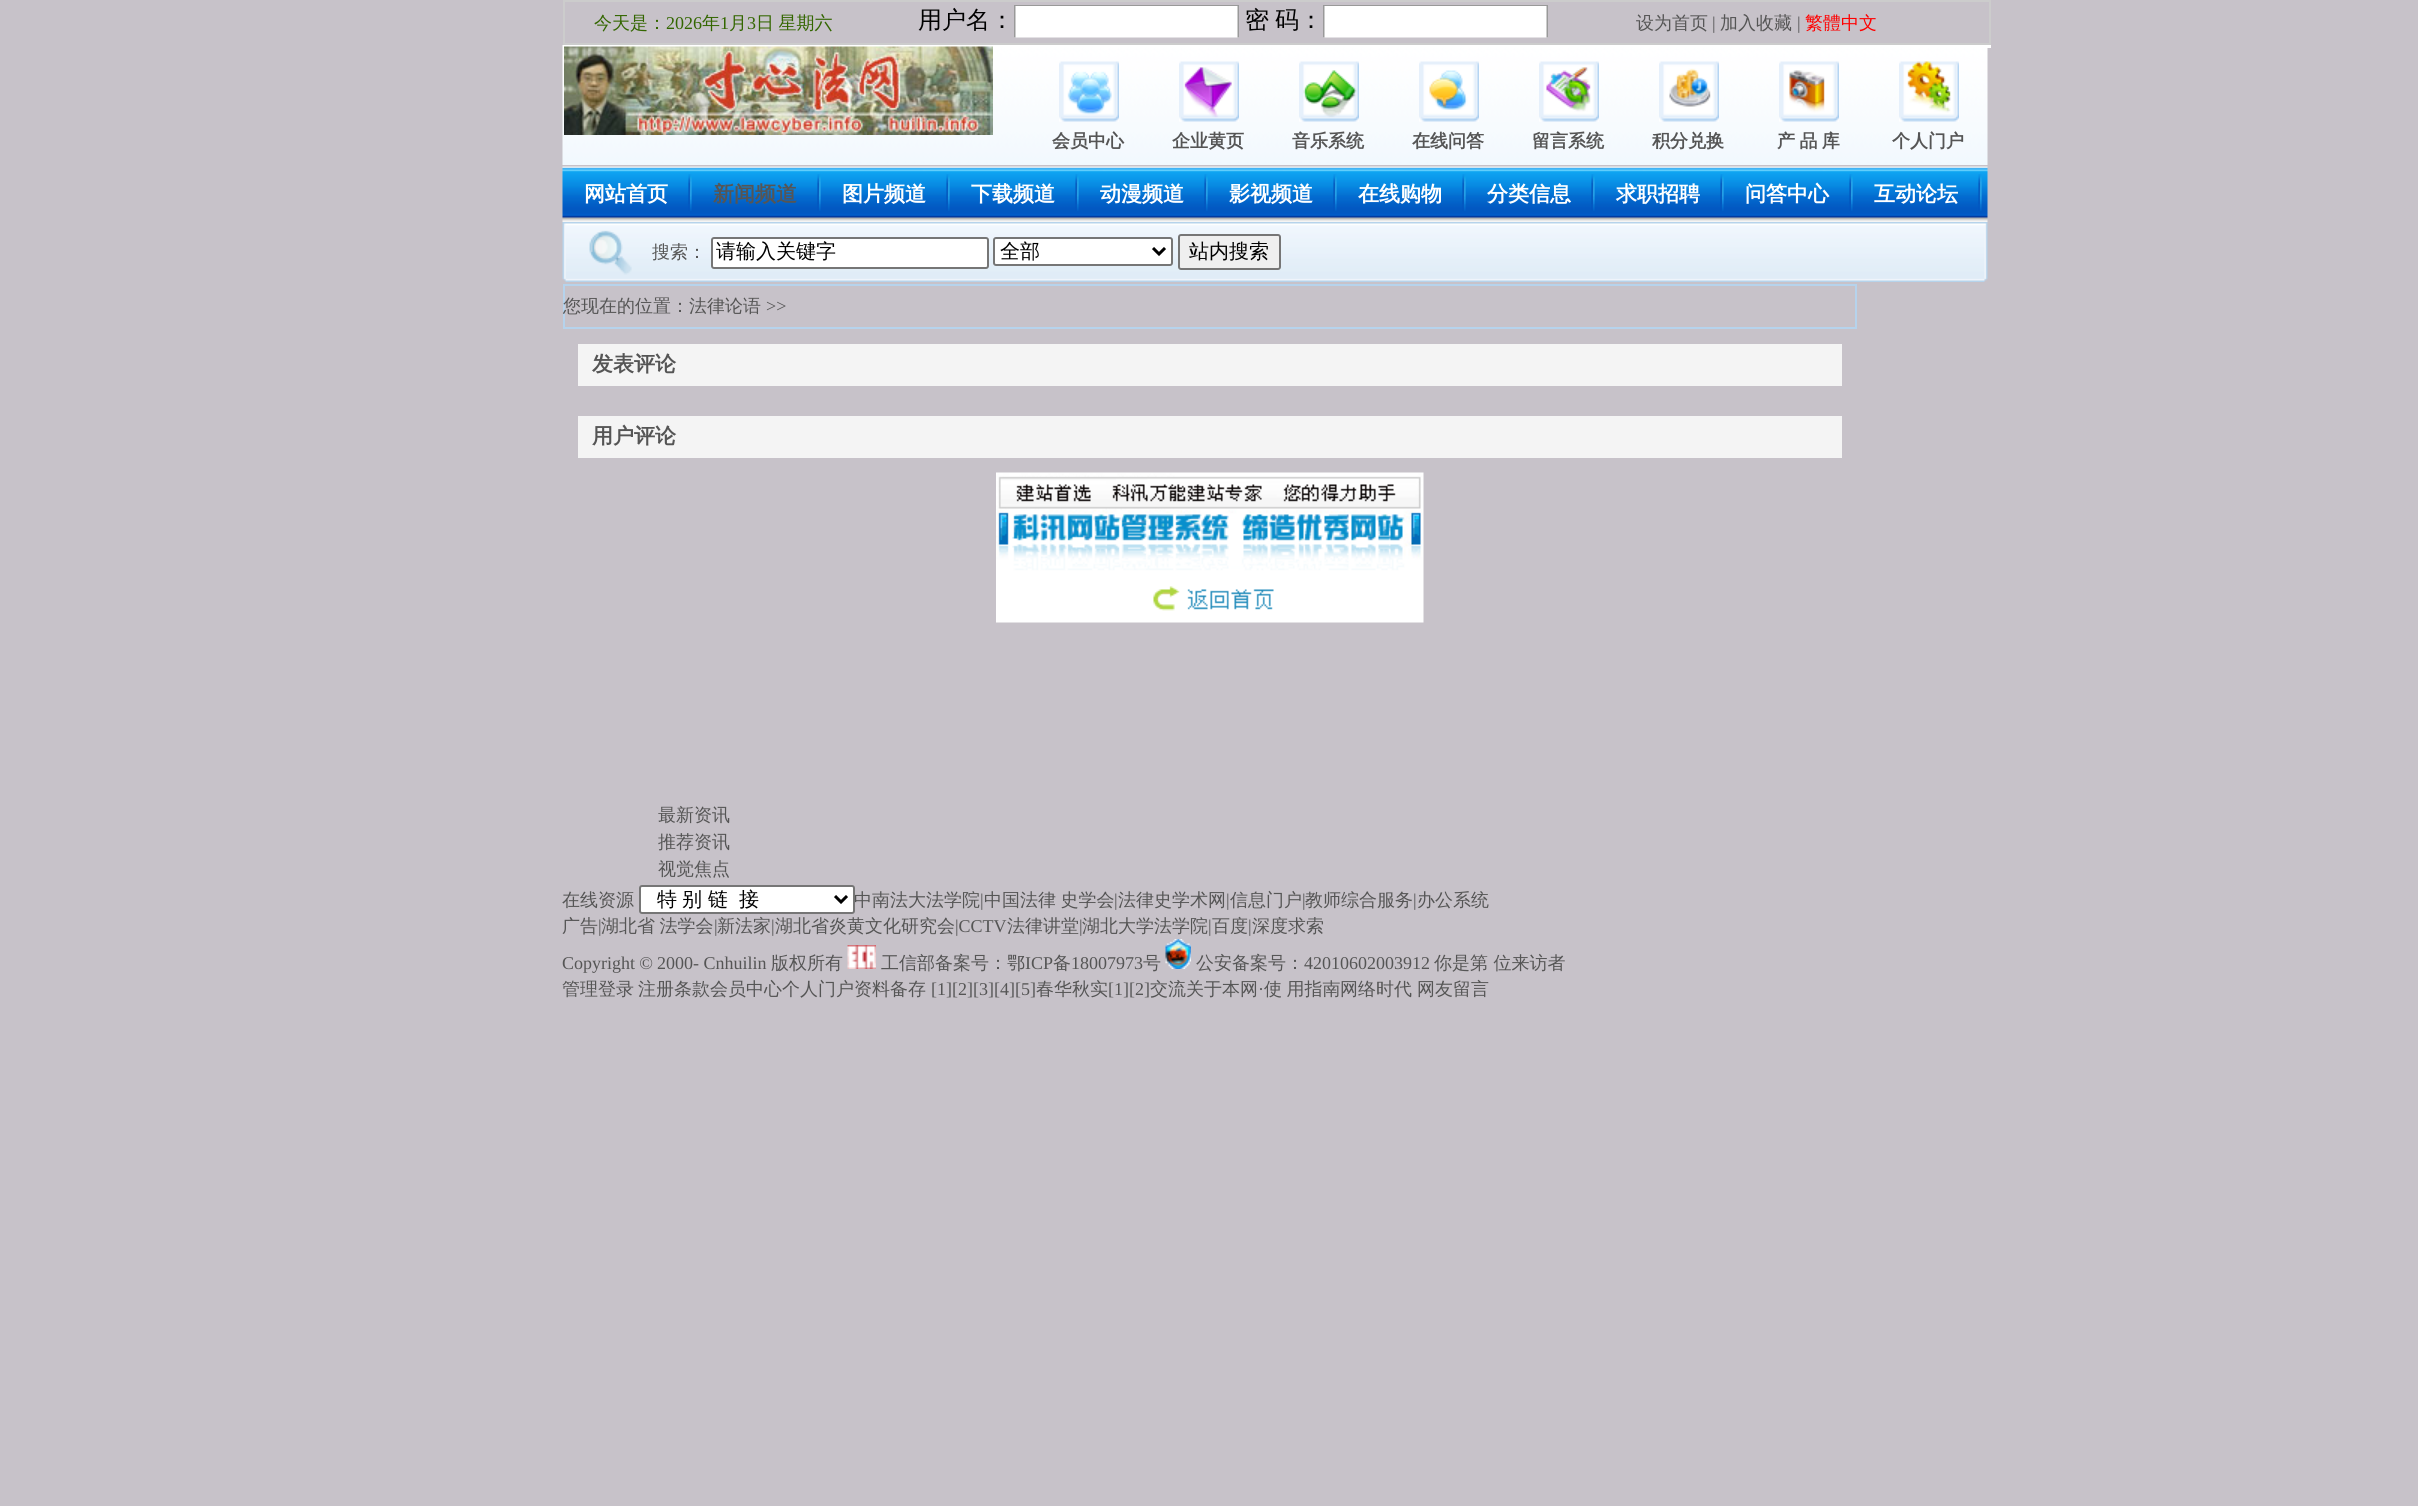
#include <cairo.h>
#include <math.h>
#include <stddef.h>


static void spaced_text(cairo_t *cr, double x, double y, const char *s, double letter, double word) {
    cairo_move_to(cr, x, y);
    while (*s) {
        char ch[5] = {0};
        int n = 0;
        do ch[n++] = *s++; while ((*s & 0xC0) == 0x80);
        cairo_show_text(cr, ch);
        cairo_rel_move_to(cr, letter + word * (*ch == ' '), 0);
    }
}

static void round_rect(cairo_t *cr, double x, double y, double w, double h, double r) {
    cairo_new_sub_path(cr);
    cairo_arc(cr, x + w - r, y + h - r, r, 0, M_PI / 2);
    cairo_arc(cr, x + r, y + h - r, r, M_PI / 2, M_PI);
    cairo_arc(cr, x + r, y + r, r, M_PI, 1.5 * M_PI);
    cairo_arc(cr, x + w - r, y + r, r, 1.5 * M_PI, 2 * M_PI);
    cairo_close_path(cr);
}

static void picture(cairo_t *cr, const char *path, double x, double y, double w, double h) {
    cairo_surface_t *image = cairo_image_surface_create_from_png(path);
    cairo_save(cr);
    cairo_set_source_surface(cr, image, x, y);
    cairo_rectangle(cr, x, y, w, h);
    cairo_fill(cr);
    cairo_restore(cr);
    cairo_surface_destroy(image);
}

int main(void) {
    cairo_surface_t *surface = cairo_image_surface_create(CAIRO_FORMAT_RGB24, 2418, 1506);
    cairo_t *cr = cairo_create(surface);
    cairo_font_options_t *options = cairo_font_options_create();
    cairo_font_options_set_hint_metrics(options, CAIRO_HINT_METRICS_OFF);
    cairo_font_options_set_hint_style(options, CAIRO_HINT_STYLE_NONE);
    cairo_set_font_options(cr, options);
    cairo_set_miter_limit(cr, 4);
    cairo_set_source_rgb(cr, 0.78, 0.761, 0.788);
    cairo_paint(cr);
    cairo_rectangle(cr, 564, 1, 1426, 43);
    cairo_set_source_rgb(cr, 0.8, 0.8, 0.8);
    cairo_stroke(cr);
    cairo_select_font_face(cr, "WenQuanYi Zen Hei Medium", CAIRO_FONT_SLANT_NORMAL, CAIRO_FONT_WEIGHT_NORMAL);
    cairo_set_font_size(cr, 18);
    cairo_set_source_rgb(cr, 0.2, 0.4, 0);
    cairo_move_to(cr, 594, 29);
    cairo_show_text(cr, "今天是：");
    cairo_select_font_face(cr, "Liberation Serif", CAIRO_FONT_SLANT_NORMAL, CAIRO_FONT_WEIGHT_NORMAL);
    cairo_move_to(cr, 666, 29);
    cairo_show_text(cr, "2026");
    cairo_select_font_face(cr, "WenQuanYi Zen Hei Medium", CAIRO_FONT_SLANT_NORMAL, CAIRO_FONT_WEIGHT_NORMAL);
    cairo_move_to(cr, 702, 29);
    cairo_show_text(cr, "年");
    cairo_select_font_face(cr, "Liberation Serif", CAIRO_FONT_SLANT_NORMAL, CAIRO_FONT_WEIGHT_NORMAL);
    cairo_move_to(cr, 720, 29);
    cairo_show_text(cr, "1");
    cairo_select_font_face(cr, "WenQuanYi Zen Hei Medium", CAIRO_FONT_SLANT_NORMAL, CAIRO_FONT_WEIGHT_NORMAL);
    cairo_move_to(cr, 729, 29);
    cairo_show_text(cr, "月");
    cairo_select_font_face(cr, "Liberation Serif", CAIRO_FONT_SLANT_NORMAL, CAIRO_FONT_WEIGHT_NORMAL);
    cairo_move_to(cr, 747, 29);
    cairo_show_text(cr, "3");
    cairo_select_font_face(cr, "WenQuanYi Zen Hei Medium", CAIRO_FONT_SLANT_NORMAL, CAIRO_FONT_WEIGHT_NORMAL);
    spaced_text(cr, 756, 29, "日 星期六", 0, -1);
    picture(cr, "img1.png", 918, 5, 630, 33);
    cairo_set_source_rgb(cr, 0.333, 0.333, 0.333);
    cairo_move_to(cr, 1636, 29);
    cairo_show_text(cr, "设为首页");
    cairo_select_font_face(cr, "Liberation Serif", CAIRO_FONT_SLANT_NORMAL, CAIRO_FONT_WEIGHT_NORMAL);
    cairo_move_to(cr, 1712, 29);
    cairo_show_text(cr, "|");
    cairo_select_font_face(cr, "WenQuanYi Zen Hei Medium", CAIRO_FONT_SLANT_NORMAL, CAIRO_FONT_WEIGHT_NORMAL);
    cairo_move_to(cr, 1720, 29);
    cairo_show_text(cr, "加入收藏");
    cairo_select_font_face(cr, "Liberation Serif", CAIRO_FONT_SLANT_NORMAL, CAIRO_FONT_WEIGHT_NORMAL);
    cairo_move_to(cr, 1797, 29);
    cairo_show_text(cr, "|");
    cairo_select_font_face(cr, "WenQuanYi Zen Hei Medium", CAIRO_FONT_SLANT_NORMAL, CAIRO_FONT_WEIGHT_NORMAL);
    cairo_set_source_rgb(cr, 1, 0, 0);
    cairo_move_to(cr, 1805, 29);
    cairo_show_text(cr, "繁體中文");
    picture(cr, "img2.png", 562, 45, 1426, 120);
    cairo_set_source_rgb(cr, 1, 1, 1);
    cairo_rectangle(cr, 1987, 45, 4, 3);
    cairo_fill(cr);
    picture(cr, "img3.png", 564, 46, 429, 89);
    picture(cr, "img4.png", 1059, 61, 60, 61);
    picture(cr, "img5.png", 1179, 61, 60, 61);
    picture(cr, "img6.png", 1299, 61, 60, 61);
    picture(cr, "img7.png", 1419, 61, 60, 61);
    picture(cr, "img8.png", 1539, 61, 60, 61);
    picture(cr, "img9.png", 1659, 61, 60, 61);
    picture(cr, "img10.png", 1779, 61, 60, 61);
    picture(cr, "img11.png", 1899, 61, 60, 61);
    cairo_select_font_face(cr, "WenQuanYi Zen Hei", CAIRO_FONT_SLANT_NORMAL, CAIRO_FONT_WEIGHT_BOLD);
    cairo_set_source_rgb(cr, 0.333, 0.333, 0.333);
    cairo_move_to(cr, 1052, 147);
    cairo_show_text(cr, "会员中心");
    cairo_move_to(cr, 1172, 147);
    cairo_show_text(cr, "企业黄页");
    cairo_move_to(cr, 1292, 147);
    cairo_show_text(cr, "音乐系统");
    cairo_move_to(cr, 1412, 147);
    cairo_show_text(cr, "在线问答");
    cairo_move_to(cr, 1532, 147);
    cairo_show_text(cr, "留言系统");
    cairo_move_to(cr, 1652, 147);
    cairo_show_text(cr, "积分兑换");
    spaced_text(cr, 1777, 147, "产 品 库", 0, -1);
    cairo_move_to(cr, 1892, 147);
    cairo_show_text(cr, "个人门户");
    picture(cr, "img12.png", 562, 166, 1426, 56);
    picture(cr, "img13.png", 688, 174, 4, 37);
    cairo_set_font_size(cr, 21);
    cairo_set_source_rgb(cr, 1, 1, 1);
    cairo_move_to(cr, 584, 201);
    cairo_show_text(cr, "网站首页");
    picture(cr, "img13.png", 817, 174, 4, 37);
    cairo_set_source_rgb(cr, 0.333, 0.333, 0.333);
    cairo_move_to(cr, 713, 201);
    cairo_show_text(cr, "新闻频道");
    picture(cr, "img13.png", 946, 174, 4, 37);
    cairo_set_source_rgb(cr, 1, 1, 1);
    cairo_move_to(cr, 842, 201);
    cairo_show_text(cr, "图片频道");
    picture(cr, "img13.png", 1075, 174, 4, 37);
    cairo_move_to(cr, 971, 201);
    cairo_show_text(cr, "下载频道");
    picture(cr, "img13.png", 1204, 174, 4, 37);
    cairo_move_to(cr, 1100, 201);
    cairo_show_text(cr, "动漫频道");
    picture(cr, "img13.png", 1333, 174, 4, 37);
    cairo_move_to(cr, 1229, 201);
    cairo_show_text(cr, "影视频道");
    picture(cr, "img13.png", 1462, 174, 4, 37);
    cairo_move_to(cr, 1358, 201);
    cairo_show_text(cr, "在线购物");
    picture(cr, "img13.png", 1591, 174, 4, 37);
    cairo_move_to(cr, 1487, 201);
    cairo_show_text(cr, "分类信息");
    picture(cr, "img13.png", 1720, 174, 4, 37);
    cairo_move_to(cr, 1616, 201);
    cairo_show_text(cr, "求职招聘");
    picture(cr, "img14.png", 1849, 174, 4, 37);
    cairo_move_to(cr, 1745, 201);
    cairo_show_text(cr, "问答中心");
    picture(cr, "img14.png", 1978, 174, 4, 37);
    cairo_move_to(cr, 1874, 201);
    cairo_show_text(cr, "互动论坛");
    picture(cr, "img15.png", 562, 222, 1426, 60);
    cairo_select_font_face(cr, "WenQuanYi Zen Hei Medium", CAIRO_FONT_SLANT_NORMAL, CAIRO_FONT_WEIGHT_NORMAL);
    cairo_set_font_size(cr, 18);
    cairo_set_source_rgb(cr, 0.333, 0.333, 0.333);
    cairo_move_to(cr, 652, 258);
    cairo_show_text(cr, "搜索：");
    cairo_set_source_rgb(cr, 1, 1, 1);
    round_rect(cr, 712, 238, 276, 30, 2);
    cairo_fill_preserve(cr);
    cairo_set_source_rgb(cr, 0.463, 0.463, 0.463);
    cairo_stroke(cr);
    cairo_set_font_size(cr, 20);
    cairo_set_source_rgb(cr, 0, 0, 0);
    cairo_move_to(cr, 716, 258);
    cairo_show_text(cr, "请输入关键字");
    cairo_set_source_rgb(cr, 1, 1, 1);
    round_rect(cr, 994, 238, 178, 27, 2);
    cairo_fill_preserve(cr);
    cairo_set_source_rgb(cr, 0.463, 0.463, 0.463);
    cairo_stroke(cr);
    cairo_new_path(cr);
    cairo_move_to(cr, 1153, 248);
    cairo_line_to(cr, 1159, 254);
    cairo_line_to(cr, 1165, 248);
    cairo_set_source_rgb(cr, 0, 0, 0);
    cairo_set_line_width(cr, 3);
    cairo_stroke(cr);
    cairo_move_to(cr, 1000, 258);
    cairo_show_text(cr, "全部");
    cairo_set_source_rgb(cr, 0.937, 0.937, 0.937);
    round_rect(cr, 1179, 235, 101, 34, 2);
    cairo_fill_preserve(cr);
    cairo_set_source_rgb(cr, 0.463, 0.463, 0.463);
    cairo_set_line_width(cr, 2);
    cairo_stroke(cr);
    cairo_set_source_rgb(cr, 0, 0, 0);
    cairo_move_to(cr, 1189, 258);
    cairo_show_text(cr, "站内搜索");
    cairo_rectangle(cr, 564, 285, 1292, 43);
    cairo_set_source_rgb(cr, 0.714, 0.827, 0.922);
    cairo_stroke(cr);
    cairo_set_font_size(cr, 18);
    cairo_set_source_rgb(cr, 0.333, 0.333, 0.333);
    cairo_move_to(cr, 563, 312);
    cairo_show_text(cr, "您现在的位置：法律论语");
    cairo_select_font_face(cr, "Liberation Serif", CAIRO_FONT_SLANT_NORMAL, CAIRO_FONT_WEIGHT_NORMAL);
    cairo_move_to(cr, 766, 312);
    cairo_show_text(cr, ">>");
    cairo_set_source_rgb(cr, 0.957, 0.957, 0.957);
    cairo_rectangle(cr, 578, 344, 1264, 42);
    cairo_fill(cr);
    cairo_select_font_face(cr, "WenQuanYi Zen Hei", CAIRO_FONT_SLANT_NORMAL, CAIRO_FONT_WEIGHT_BOLD);
    cairo_set_font_size(cr, 21);
    cairo_set_source_rgb(cr, 0.333, 0.333, 0.333);
    cairo_move_to(cr, 592, 371);
    cairo_show_text(cr, "发表评论");
    cairo_set_source_rgb(cr, 0.957, 0.957, 0.957);
    cairo_rectangle(cr, 578, 416, 1264, 42);
    cairo_fill(cr);
    cairo_set_source_rgb(cr, 0.333, 0.333, 0.333);
    cairo_move_to(cr, 592, 443);
    cairo_show_text(cr, "用户评论");
    picture(cr, "img16.png", 996, 472, 428, 151);
    cairo_select_font_face(cr, "WenQuanYi Zen Hei Medium", CAIRO_FONT_SLANT_NORMAL, CAIRO_FONT_WEIGHT_NORMAL);
    cairo_set_font_size(cr, 18);
    cairo_move_to(cr, 658, 821);
    cairo_show_text(cr, "最新资讯");
    cairo_move_to(cr, 658, 848);
    cairo_show_text(cr, "推荐资讯");
    cairo_move_to(cr, 658, 875);
    cairo_show_text(cr, "视觉焦点");
    cairo_move_to(cr, 562, 906);
    cairo_show_text(cr, "在线资源");
    cairo_set_source_rgb(cr, 1, 1, 1);
    round_rect(cr, 640, 886, 214, 27, 2);
    cairo_fill_preserve(cr);
    cairo_set_source_rgb(cr, 0.463, 0.463, 0.463);
    cairo_stroke(cr);
    cairo_new_path(cr);
    cairo_move_to(cr, 835, 896);
    cairo_line_to(cr, 841, 902);
    cairo_line_to(cr, 847, 896);
    cairo_set_source_rgb(cr, 0, 0, 0);
    cairo_set_line_width(cr, 3);
    cairo_stroke(cr);
    cairo_set_font_size(cr, 20);
    cairo_move_to(cr, 657, 906);
    cairo_show_text(cr, "特");
    cairo_move_to(cr, 682, 906);
    cairo_show_text(cr, "别");
    cairo_move_to(cr, 708, 906);
    cairo_show_text(cr, "链");
    cairo_move_to(cr, 739, 906);
    cairo_show_text(cr, "接");
    cairo_set_font_size(cr, 18);
    cairo_set_source_rgb(cr, 0.333, 0.333, 0.333);
    cairo_move_to(cr, 854, 906);
    cairo_show_text(cr, "中南法大法学院");
    cairo_select_font_face(cr, "Liberation Serif", CAIRO_FONT_SLANT_NORMAL, CAIRO_FONT_WEIGHT_NORMAL);
    cairo_move_to(cr, 980, 906);
    cairo_show_text(cr, "|");
    cairo_select_font_face(cr, "WenQuanYi Zen Hei Medium", CAIRO_FONT_SLANT_NORMAL, CAIRO_FONT_WEIGHT_NORMAL);
    spaced_text(cr, 984, 906, "中国法律 史学会", 0, -1);
    cairo_select_font_face(cr, "Liberation Serif", CAIRO_FONT_SLANT_NORMAL, CAIRO_FONT_WEIGHT_NORMAL);
    cairo_move_to(cr, 1114, 906);
    cairo_show_text(cr, "|");
    cairo_select_font_face(cr, "WenQuanYi Zen Hei Medium", CAIRO_FONT_SLANT_NORMAL, CAIRO_FONT_WEIGHT_NORMAL);
    cairo_move_to(cr, 1118, 906);
    cairo_show_text(cr, "法律史学术网");
    cairo_select_font_face(cr, "Liberation Serif", CAIRO_FONT_SLANT_NORMAL, CAIRO_FONT_WEIGHT_NORMAL);
    cairo_move_to(cr, 1226, 906);
    cairo_show_text(cr, "|");
    cairo_select_font_face(cr, "WenQuanYi Zen Hei Medium", CAIRO_FONT_SLANT_NORMAL, CAIRO_FONT_WEIGHT_NORMAL);
    cairo_move_to(cr, 1230, 906);
    cairo_show_text(cr, "信息门户");
    cairo_select_font_face(cr, "Liberation Serif", CAIRO_FONT_SLANT_NORMAL, CAIRO_FONT_WEIGHT_NORMAL);
    cairo_move_to(cr, 1302, 906);
    cairo_show_text(cr, "|");
    cairo_select_font_face(cr, "WenQuanYi Zen Hei Medium", CAIRO_FONT_SLANT_NORMAL, CAIRO_FONT_WEIGHT_NORMAL);
    cairo_move_to(cr, 1305, 906);
    cairo_show_text(cr, "教师综合服务");
    cairo_select_font_face(cr, "Liberation Serif", CAIRO_FONT_SLANT_NORMAL, CAIRO_FONT_WEIGHT_NORMAL);
    cairo_move_to(cr, 1413, 906);
    cairo_show_text(cr, "|");
    cairo_select_font_face(cr, "WenQuanYi Zen Hei Medium", CAIRO_FONT_SLANT_NORMAL, CAIRO_FONT_WEIGHT_NORMAL);
    cairo_move_to(cr, 1417, 906);
    cairo_show_text(cr, "办公系统");
    cairo_move_to(cr, 562, 932);
    cairo_show_text(cr, "广告");
    cairo_select_font_face(cr, "Liberation Serif", CAIRO_FONT_SLANT_NORMAL, CAIRO_FONT_WEIGHT_NORMAL);
    cairo_move_to(cr, 598, 932);
    cairo_show_text(cr, "|");
    cairo_select_font_face(cr, "WenQuanYi Zen Hei Medium", CAIRO_FONT_SLANT_NORMAL, CAIRO_FONT_WEIGHT_NORMAL);
    spaced_text(cr, 601, 932, "湖北省 法学会", 0, -1);
    cairo_select_font_face(cr, "Liberation Serif", CAIRO_FONT_SLANT_NORMAL, CAIRO_FONT_WEIGHT_NORMAL);
    cairo_move_to(cr, 714, 932);
    cairo_show_text(cr, "|");
    cairo_select_font_face(cr, "WenQuanYi Zen Hei Medium", CAIRO_FONT_SLANT_NORMAL, CAIRO_FONT_WEIGHT_NORMAL);
    cairo_move_to(cr, 717, 932);
    cairo_show_text(cr, "新法家");
    cairo_select_font_face(cr, "Liberation Serif", CAIRO_FONT_SLANT_NORMAL, CAIRO_FONT_WEIGHT_NORMAL);
    cairo_move_to(cr, 771, 932);
    cairo_show_text(cr, "|");
    cairo_select_font_face(cr, "WenQuanYi Zen Hei Medium", CAIRO_FONT_SLANT_NORMAL, CAIRO_FONT_WEIGHT_NORMAL);
    cairo_move_to(cr, 775, 932);
    cairo_show_text(cr, "湖北省炎黄文化研究会");
    cairo_select_font_face(cr, "Liberation Serif", CAIRO_FONT_SLANT_NORMAL, CAIRO_FONT_WEIGHT_NORMAL);
    cairo_move_to(cr, 955, 932);
    cairo_show_text(cr, "|CCTV");
    cairo_select_font_face(cr, "WenQuanYi Zen Hei Medium", CAIRO_FONT_SLANT_NORMAL, CAIRO_FONT_WEIGHT_NORMAL);
    cairo_move_to(cr, 1007, 932);
    cairo_show_text(cr, "法律讲堂");
    cairo_select_font_face(cr, "Liberation Serif", CAIRO_FONT_SLANT_NORMAL, CAIRO_FONT_WEIGHT_NORMAL);
    cairo_move_to(cr, 1079, 932);
    cairo_show_text(cr, "|");
    cairo_select_font_face(cr, "WenQuanYi Zen Hei Medium", CAIRO_FONT_SLANT_NORMAL, CAIRO_FONT_WEIGHT_NORMAL);
    cairo_move_to(cr, 1082, 932);
    cairo_show_text(cr, "湖北大学法学院");
    cairo_select_font_face(cr, "Liberation Serif", CAIRO_FONT_SLANT_NORMAL, CAIRO_FONT_WEIGHT_NORMAL);
    cairo_move_to(cr, 1208, 932);
    cairo_show_text(cr, "|");
    cairo_select_font_face(cr, "WenQuanYi Zen Hei Medium", CAIRO_FONT_SLANT_NORMAL, CAIRO_FONT_WEIGHT_NORMAL);
    cairo_move_to(cr, 1212, 932);
    cairo_show_text(cr, "百度");
    cairo_select_font_face(cr, "Liberation Serif", CAIRO_FONT_SLANT_NORMAL, CAIRO_FONT_WEIGHT_NORMAL);
    cairo_move_to(cr, 1248, 932);
    cairo_show_text(cr, "|");
    cairo_select_font_face(cr, "WenQuanYi Zen Hei Medium", CAIRO_FONT_SLANT_NORMAL, CAIRO_FONT_WEIGHT_NORMAL);
    cairo_move_to(cr, 1252, 932);
    cairo_show_text(cr, "深度求索");
    cairo_select_font_face(cr, "Liberation Serif", CAIRO_FONT_SLANT_NORMAL, CAIRO_FONT_WEIGHT_NORMAL);
    cairo_move_to(cr, 562, 969);
    cairo_show_text(cr, "Copyright");
    cairo_select_font_face(cr, "Liberation Serif", CAIRO_FONT_SLANT_ITALIC, CAIRO_FONT_WEIGHT_NORMAL);
    cairo_move_to(cr, 639, 969);
    cairo_show_text(cr, "©");
    cairo_select_font_face(cr, "Liberation Serif", CAIRO_FONT_SLANT_NORMAL, CAIRO_FONT_WEIGHT_NORMAL);
    cairo_move_to(cr, 657, 969);
    cairo_show_text(cr, "2000- Cnhuilin");
    cairo_select_font_face(cr, "WenQuanYi Zen Hei Medium", CAIRO_FONT_SLANT_NORMAL, CAIRO_FONT_WEIGHT_NORMAL);
    cairo_move_to(cr, 771, 969);
    cairo_show_text(cr, "版权所有");
    picture(cr, "img17.png", 847, 945, 29, 24);
    cairo_move_to(cr, 881, 969);
    cairo_show_text(cr, "工信部备案号：鄂");
    cairo_select_font_face(cr, "Liberation Serif", CAIRO_FONT_SLANT_NORMAL, CAIRO_FONT_WEIGHT_NORMAL);
    cairo_move_to(cr, 1025, 969);
    cairo_show_text(cr, "ICP");
    cairo_select_font_face(cr, "WenQuanYi Zen Hei Medium", CAIRO_FONT_SLANT_NORMAL, CAIRO_FONT_WEIGHT_NORMAL);
    cairo_move_to(cr, 1053, 969);
    cairo_show_text(cr, "备");
    cairo_select_font_face(cr, "Liberation Serif", CAIRO_FONT_SLANT_NORMAL, CAIRO_FONT_WEIGHT_NORMAL);
    cairo_move_to(cr, 1071, 969);
    cairo_show_text(cr, "18007973");
    cairo_select_font_face(cr, "WenQuanYi Zen Hei Medium", CAIRO_FONT_SLANT_NORMAL, CAIRO_FONT_WEIGHT_NORMAL);
    cairo_move_to(cr, 1143, 969);
    cairo_show_text(cr, "号");
    picture(cr, "img18.png", 1165, 939, 26, 30);
    cairo_move_to(cr, 1196, 969);
    cairo_show_text(cr, "公安备案号：");
    cairo_select_font_face(cr, "Liberation Serif", CAIRO_FONT_SLANT_NORMAL, CAIRO_FONT_WEIGHT_NORMAL);
    cairo_move_to(cr, 1304, 969);
    cairo_show_text(cr, "42010602003912");
    cairo_select_font_face(cr, "WenQuanYi Zen Hei Medium", CAIRO_FONT_SLANT_NORMAL, CAIRO_FONT_WEIGHT_NORMAL);
    cairo_move_to(cr, 1434, 969);
    cairo_show_text(cr, "你是第 位来访者");
    cairo_move_to(cr, 562, 995);
    cairo_show_text(cr, "管理登录");
    cairo_move_to(cr, 638, 995);
    cairo_show_text(cr, "注册条款会员中心个人门户资料备存");
    cairo_select_font_face(cr, "Liberation Serif", CAIRO_FONT_SLANT_NORMAL, CAIRO_FONT_WEIGHT_NORMAL);
    cairo_move_to(cr, 931, 995);
    cairo_show_text(cr, "[1][2][3][4][5]");
    cairo_select_font_face(cr, "WenQuanYi Zen Hei Medium", CAIRO_FONT_SLANT_NORMAL, CAIRO_FONT_WEIGHT_NORMAL);
    cairo_move_to(cr, 1036, 995);
    cairo_show_text(cr, "春华秋实");
    cairo_select_font_face(cr, "Liberation Serif", CAIRO_FONT_SLANT_NORMAL, CAIRO_FONT_WEIGHT_NORMAL);
    cairo_move_to(cr, 1108, 995);
    cairo_show_text(cr, "[1][2]");
    cairo_select_font_face(cr, "WenQuanYi Zen Hei Medium", CAIRO_FONT_SLANT_NORMAL, CAIRO_FONT_WEIGHT_NORMAL);
    cairo_move_to(cr, 1150, 995);
    cairo_show_text(cr, "交流关于本网");
    cairo_select_font_face(cr, "Liberation Serif", CAIRO_FONT_SLANT_NORMAL, CAIRO_FONT_WEIGHT_NORMAL);
    cairo_move_to(cr, 1258, 995);
    cairo_show_text(cr, "·");
    cairo_select_font_face(cr, "WenQuanYi Zen Hei Medium", CAIRO_FONT_SLANT_NORMAL, CAIRO_FONT_WEIGHT_NORMAL);
    spaced_text(cr, 1264, 995, "使 用指南", 0, -1);
    cairo_move_to(cr, 1340, 995);
    cairo_show_text(cr, "网络时代");
    cairo_move_to(cr, 1417, 995);
    cairo_show_text(cr, "网友留言");
    cairo_surface_write_to_png(surface, "page.png");
    cairo_font_options_destroy(options);
    cairo_destroy(cr);
    cairo_surface_destroy(surface);
    return 0;
}
